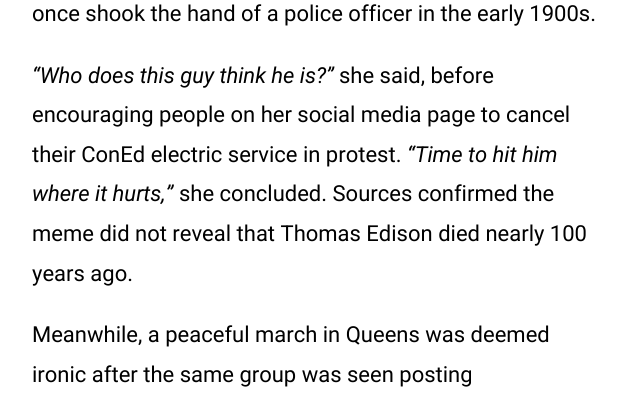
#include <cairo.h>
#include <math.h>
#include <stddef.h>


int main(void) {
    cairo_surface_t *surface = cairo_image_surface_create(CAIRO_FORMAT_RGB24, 635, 401);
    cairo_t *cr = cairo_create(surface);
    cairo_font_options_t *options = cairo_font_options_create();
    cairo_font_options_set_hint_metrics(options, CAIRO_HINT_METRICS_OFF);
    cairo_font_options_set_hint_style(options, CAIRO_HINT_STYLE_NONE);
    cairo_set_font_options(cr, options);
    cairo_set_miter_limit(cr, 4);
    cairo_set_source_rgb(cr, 1, 1, 1);
    cairo_paint(cr);
    cairo_select_font_face(cr, "Roboto", CAIRO_FONT_SLANT_NORMAL, CAIRO_FONT_WEIGHT_NORMAL);
    cairo_set_font_size(cr, 22);
    cairo_set_source_rgb(cr, 0, 0, 0);
    cairo_move_to(cr, 32, 21);
    cairo_show_text(cr, "once shook the hand of a police officer in the early 1900s.");
    cairo_select_font_face(cr, "Roboto", CAIRO_FONT_SLANT_ITALIC, CAIRO_FONT_WEIGHT_NORMAL);
    cairo_move_to(cr, 32, 83);
    cairo_show_text(cr, "“Who does this guy think he is?”");
    cairo_select_font_face(cr, "Roboto", CAIRO_FONT_SLANT_NORMAL, CAIRO_FONT_WEIGHT_NORMAL);
    cairo_move_to(cr, 339, 83);
    cairo_show_text(cr, "she said, before");
    cairo_move_to(cr, 32, 122);
    cairo_show_text(cr, "encouraging people on her social media page to cancel");
    cairo_move_to(cr, 32, 162);
    cairo_show_text(cr, "their ConEd electric service in protest.");
    cairo_select_font_face(cr, "Roboto", CAIRO_FONT_SLANT_ITALIC, CAIRO_FONT_WEIGHT_NORMAL);
    cairo_move_to(cr, 407, 162);
    cairo_show_text(cr, "“Time to hit him");
    cairo_move_to(cr, 32, 201);
    cairo_show_text(cr, "where it hurts,”");
    cairo_select_font_face(cr, "Roboto", CAIRO_FONT_SLANT_NORMAL, CAIRO_FONT_WEIGHT_NORMAL);
    cairo_move_to(cr, 179, 201);
    cairo_show_text(cr, "she concluded. Sources confirmed the");
    cairo_move_to(cr, 32, 241);
    cairo_show_text(cr, "meme did not reveal that Thomas Edison died nearly 100");
    cairo_move_to(cr, 32, 281);
    cairo_show_text(cr, "years ago.");
    cairo_move_to(cr, 32, 342);
    cairo_show_text(cr, "Meanwhile, a peaceful march in Queens was deemed");
    cairo_move_to(cr, 32, 382);
    cairo_show_text(cr, "ironic after the same group was seen posting");
    cairo_surface_write_to_png(surface, "page.png");
    cairo_font_options_destroy(options);
    cairo_destroy(cr);
    cairo_surface_destroy(surface);
    return 0;
}
